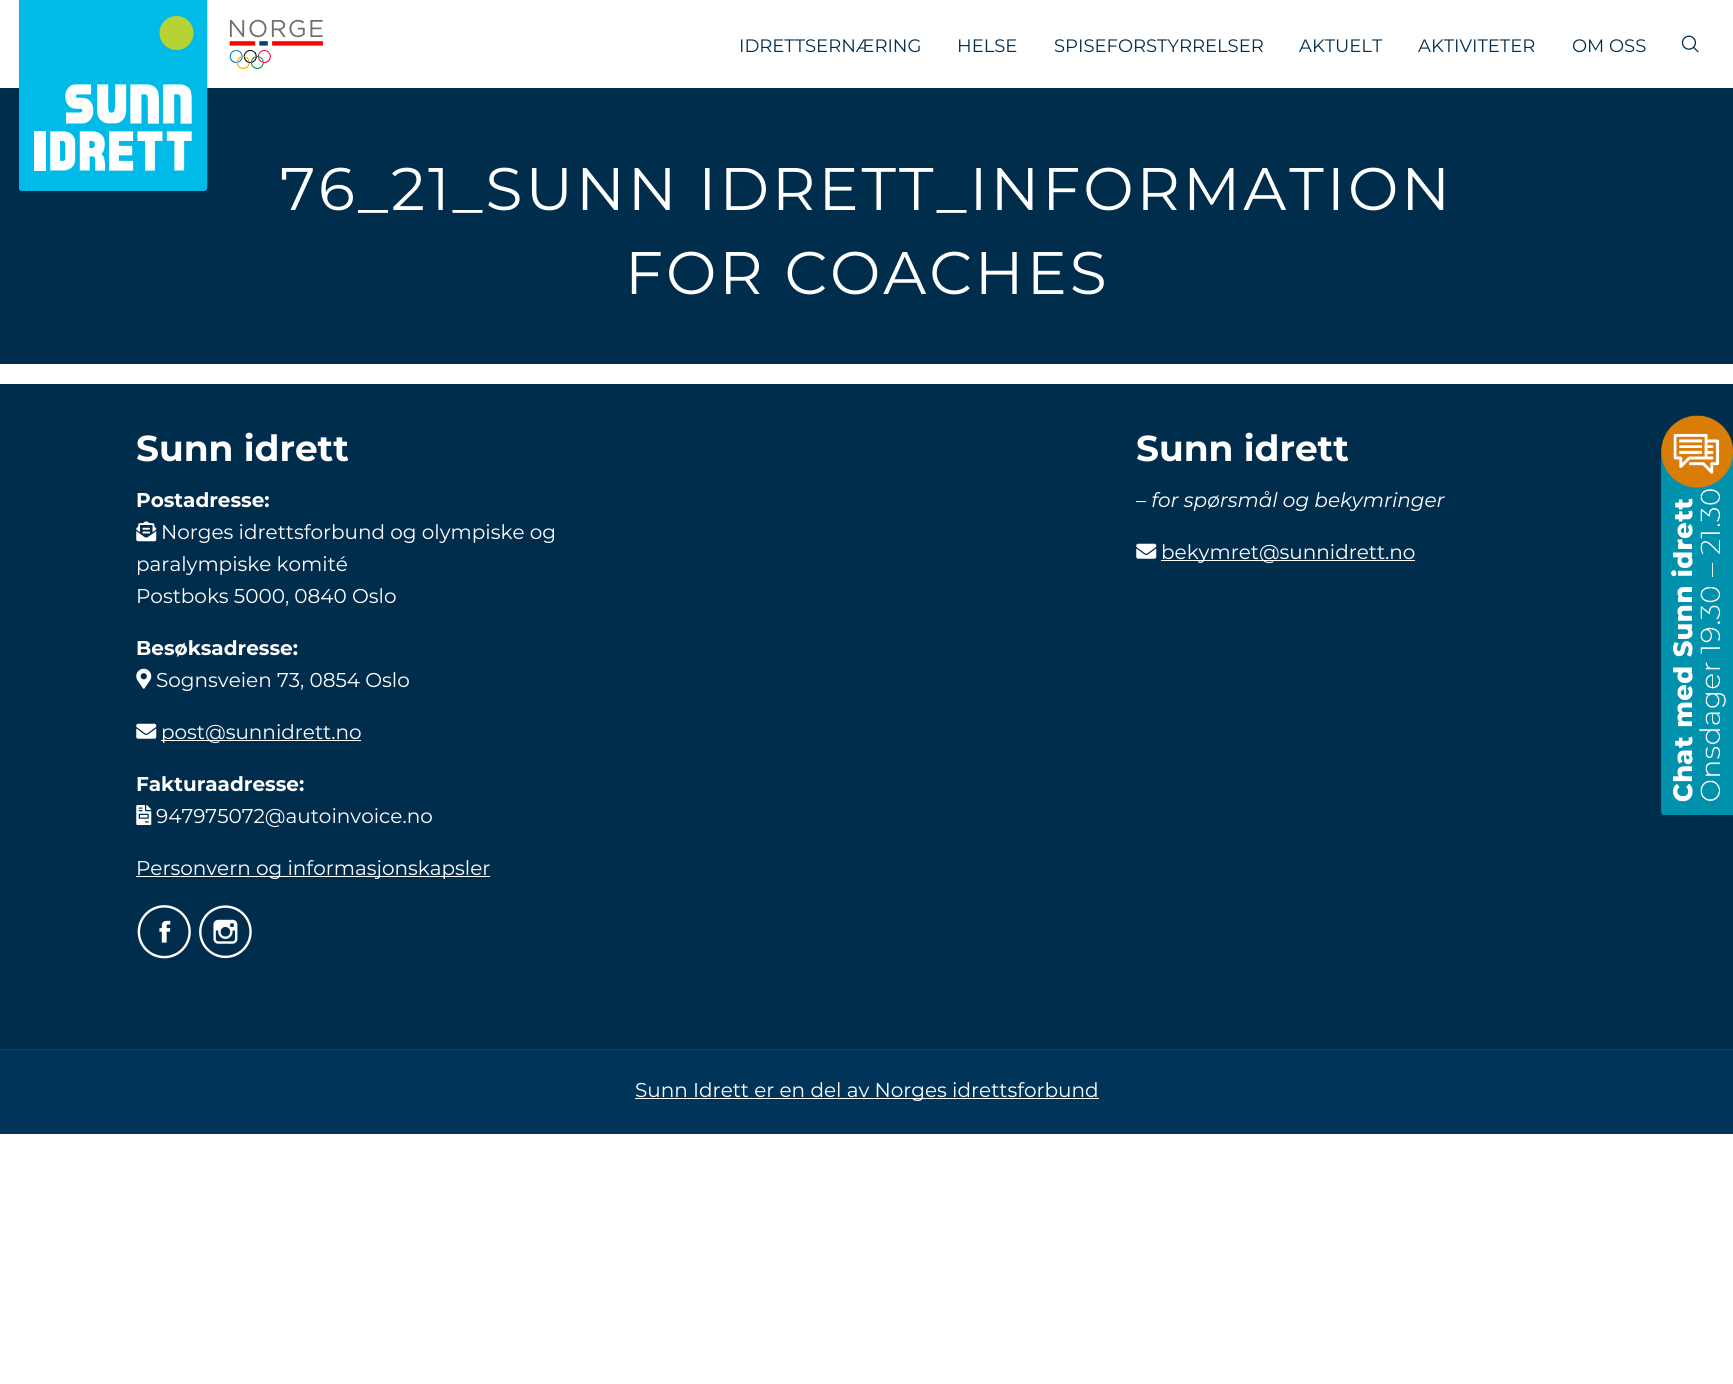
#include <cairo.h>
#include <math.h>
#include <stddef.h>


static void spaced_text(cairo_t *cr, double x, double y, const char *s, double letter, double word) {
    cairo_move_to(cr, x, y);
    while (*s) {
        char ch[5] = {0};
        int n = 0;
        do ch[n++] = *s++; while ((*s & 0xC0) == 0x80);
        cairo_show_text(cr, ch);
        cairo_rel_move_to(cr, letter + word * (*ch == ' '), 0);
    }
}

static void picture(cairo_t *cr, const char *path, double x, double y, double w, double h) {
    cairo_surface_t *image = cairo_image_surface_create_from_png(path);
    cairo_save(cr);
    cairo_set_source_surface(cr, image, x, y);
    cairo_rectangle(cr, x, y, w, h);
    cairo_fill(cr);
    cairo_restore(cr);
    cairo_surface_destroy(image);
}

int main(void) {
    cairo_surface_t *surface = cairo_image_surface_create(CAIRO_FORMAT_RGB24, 1733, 1384);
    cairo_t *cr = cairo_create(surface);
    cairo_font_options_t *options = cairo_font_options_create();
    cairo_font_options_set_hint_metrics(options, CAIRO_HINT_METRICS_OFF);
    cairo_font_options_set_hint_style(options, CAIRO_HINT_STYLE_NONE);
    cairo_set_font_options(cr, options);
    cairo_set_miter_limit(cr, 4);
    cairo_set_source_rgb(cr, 1, 1, 1);
    cairo_paint(cr);
    cairo_set_source_rgb(cr, 0.004, 0.176, 0.302);
    cairo_rectangle(cr, 0, 88, 1733, 276);
    cairo_fill(cr);
    picture(cr, "img1.png", 19, 0, 189, 191);
    picture(cr, "img2.png", 229, 19, 94, 50);
    cairo_select_font_face(cr, "Montserrat", CAIRO_FONT_SLANT_NORMAL, CAIRO_FONT_WEIGHT_NORMAL);
    cairo_set_font_size(cr, 18);
    cairo_move_to(cr, 739, 52);
    cairo_show_text(cr, "IDRETTSERNÆRING");
    cairo_move_to(cr, 957, 52);
    cairo_show_text(cr, "HELSE");
    cairo_move_to(cr, 1054, 52);
    cairo_show_text(cr, "SPISEFORSTYRRELSER");
    cairo_move_to(cr, 1299, 52);
    cairo_show_text(cr, "AKTUELT");
    cairo_move_to(cr, 1418, 52);
    cairo_show_text(cr, "AKTIVITETER");
    cairo_move_to(cr, 1572, 52);
    cairo_show_text(cr, "OM OSS");
    picture(cr, "img3.png", 1681, 35, 18, 18);
    cairo_set_font_size(cr, 60);
    cairo_set_source_rgb(cr, 1, 1, 1);
    spaced_text(cr, 280, 210, "76_21_SUNN IDRETT_INFORMATION", 3, 0);
    spaced_text(cr, 625, 294, "FOR COACHES", 3, 0);
    cairo_set_source_rgb(cr, 0.004, 0.176, 0.302);
    cairo_rectangle(cr, 0, 384, 1733, 665);
    cairo_fill(cr);
    cairo_select_font_face(cr, "Montserrat", CAIRO_FONT_SLANT_NORMAL, CAIRO_FONT_WEIGHT_BOLD);
    cairo_set_font_size(cr, 36);
    cairo_set_source_rgb(cr, 1, 1, 1);
    cairo_move_to(cr, 136, 461);
    cairo_show_text(cr, "Sunn idrett");
    cairo_set_font_size(cr, 20);
    cairo_move_to(cr, 136, 507);
    cairo_show_text(cr, "Postadresse:");
    picture(cr, "img4.png", 136, 521, 21, 21);
    cairo_select_font_face(cr, "Montserrat", CAIRO_FONT_SLANT_NORMAL, CAIRO_FONT_WEIGHT_NORMAL);
    cairo_move_to(cr, 161, 539);
    cairo_show_text(cr, "Norges idrettsforbund og olympiske og");
    cairo_move_to(cr, 136, 571);
    cairo_show_text(cr, "paralympiske komité");
    cairo_move_to(cr, 136, 603);
    cairo_show_text(cr, "Postboks 5000, 0840 Oslo");
    cairo_select_font_face(cr, "Montserrat", CAIRO_FONT_SLANT_NORMAL, CAIRO_FONT_WEIGHT_BOLD);
    cairo_move_to(cr, 136, 655);
    cairo_show_text(cr, "Besøksadresse:");
    picture(cr, "img5.png", 136, 668, 16, 21);
    cairo_select_font_face(cr, "Montserrat", CAIRO_FONT_SLANT_NORMAL, CAIRO_FONT_WEIGHT_NORMAL);
    cairo_move_to(cr, 156, 687);
    cairo_show_text(cr, "Sognsveien 73, 0854 Oslo");
    picture(cr, "img6.png", 136, 723, 21, 16);
    cairo_rectangle(cr, 161, 740, 200, 1);
    cairo_fill(cr);
    cairo_move_to(cr, 161, 739);
    cairo_show_text(cr, "post@sunnidrett.no");
    cairo_select_font_face(cr, "Montserrat", CAIRO_FONT_SLANT_NORMAL, CAIRO_FONT_WEIGHT_BOLD);
    cairo_move_to(cr, 136, 791);
    cairo_show_text(cr, "Fakturaadresse:");
    picture(cr, "img7.png", 136, 805, 16, 20);
    cairo_select_font_face(cr, "Montserrat", CAIRO_FONT_SLANT_NORMAL, CAIRO_FONT_WEIGHT_NORMAL);
    cairo_move_to(cr, 156, 823);
    cairo_show_text(cr, "947975072@autoinvoice.no");
    cairo_rectangle(cr, 136, 876, 354, 1);
    cairo_fill(cr);
    cairo_move_to(cr, 136, 875);
    cairo_show_text(cr, "Personvern og informasjonskapsler");
    picture(cr, "img8.png", 137, 905, 54, 54);
    picture(cr, "img9.png", 199, 905, 53, 54);
    cairo_select_font_face(cr, "Montserrat", CAIRO_FONT_SLANT_NORMAL, CAIRO_FONT_WEIGHT_BOLD);
    cairo_set_font_size(cr, 36);
    cairo_move_to(cr, 1136, 461);
    cairo_show_text(cr, "Sunn idrett");
    cairo_select_font_face(cr, "Montserrat", CAIRO_FONT_SLANT_ITALIC, CAIRO_FONT_WEIGHT_NORMAL);
    cairo_set_font_size(cr, 20);
    cairo_move_to(cr, 1136, 507);
    cairo_show_text(cr, "– for spørsmål og bekymringer");
    picture(cr, "img6.png", 1136, 543, 21, 16);
    cairo_rectangle(cr, 1161, 560, 254, 1);
    cairo_fill(cr);
    cairo_select_font_face(cr, "Montserrat", CAIRO_FONT_SLANT_NORMAL, CAIRO_FONT_WEIGHT_NORMAL);
    cairo_move_to(cr, 1161, 559);
    cairo_show_text(cr, "bekymret@sunnidrett.no");
    cairo_set_source_rgb(cr, 0.004, 0.204, 0.349);
    cairo_rectangle(cr, 0, 1050, 1733, 84);
    cairo_fill(cr);
    cairo_set_source_rgb(cr, 0.027, 0.263, 0.427);
    cairo_rectangle(cr, 0, 1049, 1733, 1);
    cairo_fill(cr);
    cairo_set_source_rgb(cr, 1, 1, 1);
    cairo_rectangle(cr, 635, 1098, 464, 1);
    cairo_fill(cr);
    cairo_move_to(cr, 635, 1097);
    cairo_show_text(cr, "Sunn Idrett er en del av Norges idrettsforbund");
    picture(cr, "img10.png", 1661, 415, 72, 400);
    cairo_surface_write_to_png(surface, "page.png");
    cairo_font_options_destroy(options);
    cairo_destroy(cr);
    cairo_surface_destroy(surface);
    return 0;
}
